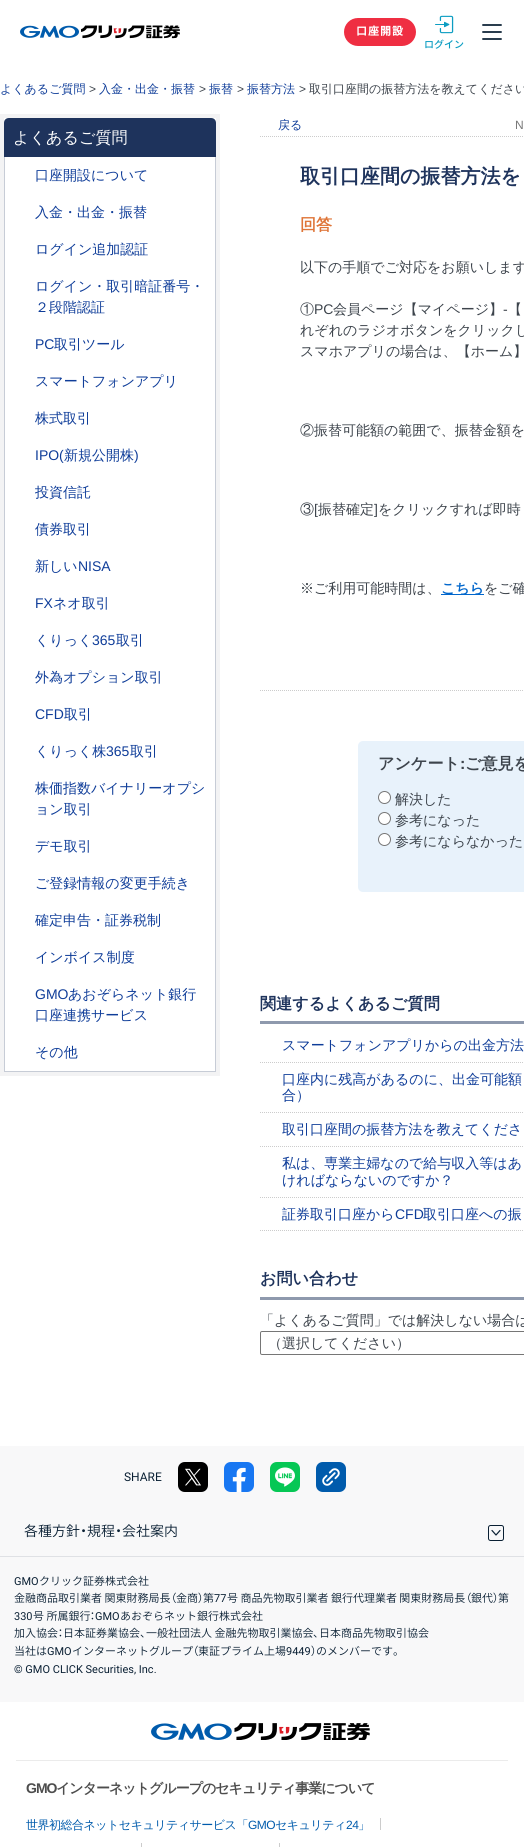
#include <cairo.h>
#include <math.h>
#include <stddef.h>


static void spaced_text(cairo_t *cr, double x, double y, const char *s, double letter, double word) {
    cairo_move_to(cr, x, y);
    while (*s) {
        char ch[5] = {0};
        int n = 0;
        do ch[n++] = *s++; while ((*s & 0xC0) == 0x80);
        cairo_show_text(cr, ch);
        cairo_rel_move_to(cr, letter + word * (*ch == ' '), 0);
    }
}

static void round_rect(cairo_t *cr, double x, double y, double w, double h, double r) {
    cairo_new_sub_path(cr);
    cairo_arc(cr, x + w - r, y + h - r, r, 0, M_PI / 2);
    cairo_arc(cr, x + r, y + h - r, r, M_PI / 2, M_PI);
    cairo_arc(cr, x + r, y + r, r, M_PI, 1.5 * M_PI);
    cairo_arc(cr, x + w - r, y + r, r, 1.5 * M_PI, 2 * M_PI);
    cairo_close_path(cr);
}

static void picture(cairo_t *cr, const char *path, double x, double y, double w, double h) {
    cairo_surface_t *image = cairo_image_surface_create_from_png(path);
    cairo_save(cr);
    cairo_set_source_surface(cr, image, x, y);
    cairo_rectangle(cr, x, y, w, h);
    cairo_fill(cr);
    cairo_restore(cr);
    cairo_surface_destroy(image);
}

int main(void) {
    cairo_surface_t *surface = cairo_image_surface_create(CAIRO_FORMAT_RGB24, 524, 1847);
    cairo_t *cr = cairo_create(surface);
    cairo_font_options_t *options = cairo_font_options_create();
    cairo_font_options_set_hint_metrics(options, CAIRO_HINT_METRICS_OFF);
    cairo_font_options_set_hint_style(options, CAIRO_HINT_STYLE_NONE);
    cairo_set_font_options(cr, options);
    cairo_set_miter_limit(cr, 4);
    cairo_set_source_rgb(cr, 1, 1, 1);
    cairo_paint(cr);
    picture(cr, "img1.png", 20, 25, 160, 14);
    cairo_set_source_rgb(cr, 0.937, 0.18, 0.259);
    round_rect(cr, 344, 18, 72, 28, 14);
    cairo_fill(cr);
    cairo_select_font_face(cr, "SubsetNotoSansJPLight", CAIRO_FONT_SLANT_NORMAL, CAIRO_FONT_WEIGHT_BOLD);
    cairo_set_font_size(cr, 11);
    cairo_set_source_rgb(cr, 1, 1, 1);
    spaced_text(cr, 356, 35, "口座開設", 1, 0);
    picture(cr, "img2.png", 425, 15, 39, 34);
    cairo_new_path(cr);
    cairo_move_to(cr, 483, 39);
    cairo_line_to(cr, 501, 39);
    cairo_move_to(cr, 483, 32);
    cairo_line_to(cr, 501, 32);
    cairo_move_to(cr, 483, 25);
    cairo_line_to(cr, 501, 25);
    cairo_set_source_rgb(cr, 0.039, 0.122, 0.2);
    cairo_set_line_width(cr, 1.8);
    cairo_set_line_cap(cr, CAIRO_LINE_CAP_ROUND);
    cairo_set_line_join(cr, CAIRO_LINE_JOIN_ROUND);
    cairo_stroke(cr);
    cairo_select_font_face(cr, "WenQuanYi Zen Hei Medium", CAIRO_FONT_SLANT_NORMAL, CAIRO_FONT_WEIGHT_NORMAL);
    cairo_set_font_size(cr, 12);
    cairo_set_source_rgb(cr, 0.059, 0.239, 0.6);
    cairo_move_to(cr, 0, 93);
    cairo_show_text(cr, "よくあるご質問");
    cairo_select_font_face(cr, "Liberation Sans", CAIRO_FONT_SLANT_NORMAL, CAIRO_FONT_WEIGHT_NORMAL);
    cairo_set_source_rgb(cr, 0.239, 0.267, 0.298);
    cairo_move_to(cr, 89, 93);
    cairo_show_text(cr, ">");
    cairo_select_font_face(cr, "WenQuanYi Zen Hei Medium", CAIRO_FONT_SLANT_NORMAL, CAIRO_FONT_WEIGHT_NORMAL);
    cairo_set_source_rgb(cr, 0.059, 0.239, 0.6);
    cairo_move_to(cr, 99, 93);
    cairo_show_text(cr, "入金・出金・振替");
    cairo_select_font_face(cr, "Liberation Sans", CAIRO_FONT_SLANT_NORMAL, CAIRO_FONT_WEIGHT_NORMAL);
    cairo_set_source_rgb(cr, 0.239, 0.267, 0.298);
    cairo_move_to(cr, 199, 93);
    cairo_show_text(cr, ">");
    cairo_select_font_face(cr, "WenQuanYi Zen Hei Medium", CAIRO_FONT_SLANT_NORMAL, CAIRO_FONT_WEIGHT_NORMAL);
    cairo_set_source_rgb(cr, 0.059, 0.239, 0.6);
    cairo_move_to(cr, 209, 93);
    cairo_show_text(cr, "振替");
    cairo_select_font_face(cr, "Liberation Sans", CAIRO_FONT_SLANT_NORMAL, CAIRO_FONT_WEIGHT_NORMAL);
    cairo_set_source_rgb(cr, 0.239, 0.267, 0.298);
    cairo_move_to(cr, 237, 93);
    cairo_show_text(cr, ">");
    cairo_select_font_face(cr, "WenQuanYi Zen Hei Medium", CAIRO_FONT_SLANT_NORMAL, CAIRO_FONT_WEIGHT_NORMAL);
    cairo_set_source_rgb(cr, 0.059, 0.239, 0.6);
    cairo_move_to(cr, 247, 93);
    cairo_show_text(cr, "振替方法");
    cairo_select_font_face(cr, "Liberation Sans", CAIRO_FONT_SLANT_NORMAL, CAIRO_FONT_WEIGHT_NORMAL);
    cairo_set_source_rgb(cr, 0.239, 0.267, 0.298);
    cairo_move_to(cr, 299, 93);
    cairo_show_text(cr, ">");
    cairo_select_font_face(cr, "WenQuanYi Zen Hei Medium", CAIRO_FONT_SLANT_NORMAL, CAIRO_FONT_WEIGHT_NORMAL);
    cairo_move_to(cr, 309, 93);
    cairo_show_text(cr, "取引口座間の振替方法を教えてください");
    cairo_set_source_rgb(cr, 0.953, 0.953, 0.957);
    cairo_rectangle(cr, 0, 114, 220, 962);
    cairo_fill(cr);
    cairo_set_source_rgb(cr, 1, 1, 1);
    cairo_rectangle(cr, 4, 118, 212, 953);
    cairo_fill(cr);
    cairo_set_source_rgb(cr, 0.118, 0.2, 0.361);
    cairo_new_path(cr);
    cairo_move_to(cr, 9, 118);
    cairo_line_to(cr, 211, 118);
    cairo_curve_to(cr, 214, 118, 216, 120, 216, 123);
    cairo_line_to(cr, 216, 157);
    cairo_line_to(cr, 4, 157);
    cairo_line_to(cr, 4, 123);
    cairo_curve_to(cr, 4, 120, 6, 118, 9, 118);
    cairo_close_path(cr);
    cairo_fill(cr);
    cairo_set_font_size(cr, 16.1);
    cairo_set_source_rgb(cr, 1, 1, 1);
    cairo_move_to(cr, 13, 143);
    cairo_show_text(cr, "よくあるご質問");
    cairo_set_source_rgb(cr, 0.78, 0.8, 0.839);
    cairo_rectangle(cr, 215, 157, 1, 915);
    cairo_fill(cr);
    cairo_rectangle(cr, 4, 1071, 212, 1);
    cairo_fill(cr);
    cairo_rectangle(cr, 4, 157, 1, 915);
    cairo_fill(cr);
    cairo_set_font_size(cr, 14);
    cairo_set_source_rgb(cr, 0.059, 0.239, 0.6);
    cairo_move_to(cr, 35, 180);
    cairo_show_text(cr, "口座開設について");
    cairo_move_to(cr, 35, 217);
    cairo_show_text(cr, "入金・出金・振替");
    cairo_move_to(cr, 35, 254);
    cairo_show_text(cr, "ログイン追加認証");
    cairo_move_to(cr, 35, 291);
    cairo_show_text(cr, "ログイン・取引暗証番号・");
    cairo_move_to(cr, 35, 312);
    cairo_show_text(cr, "２段階認証");
    cairo_select_font_face(cr, "Liberation Sans", CAIRO_FONT_SLANT_NORMAL, CAIRO_FONT_WEIGHT_NORMAL);
    cairo_move_to(cr, 35, 349);
    cairo_show_text(cr, "PC");
    cairo_select_font_face(cr, "WenQuanYi Zen Hei Medium", CAIRO_FONT_SLANT_NORMAL, CAIRO_FONT_WEIGHT_NORMAL);
    cairo_move_to(cr, 54, 349);
    cairo_show_text(cr, "取引ツール");
    cairo_move_to(cr, 35, 386);
    cairo_show_text(cr, "スマートフォンアプリ");
    cairo_move_to(cr, 35, 423);
    cairo_show_text(cr, "株式取引");
    cairo_select_font_face(cr, "Liberation Sans", CAIRO_FONT_SLANT_NORMAL, CAIRO_FONT_WEIGHT_NORMAL);
    cairo_move_to(cr, 35, 460);
    cairo_show_text(cr, "IPO(");
    cairo_select_font_face(cr, "WenQuanYi Zen Hei Medium", CAIRO_FONT_SLANT_NORMAL, CAIRO_FONT_WEIGHT_NORMAL);
    cairo_move_to(cr, 64, 460);
    cairo_show_text(cr, "新規公開株");
    cairo_select_font_face(cr, "Liberation Sans", CAIRO_FONT_SLANT_NORMAL, CAIRO_FONT_WEIGHT_NORMAL);
    cairo_move_to(cr, 134, 460);
    cairo_show_text(cr, ")");
    cairo_select_font_face(cr, "WenQuanYi Zen Hei Medium", CAIRO_FONT_SLANT_NORMAL, CAIRO_FONT_WEIGHT_NORMAL);
    cairo_move_to(cr, 35, 497);
    cairo_show_text(cr, "投資信託");
    cairo_move_to(cr, 35, 534);
    cairo_show_text(cr, "債券取引");
    cairo_move_to(cr, 35, 571);
    cairo_show_text(cr, "新しい");
    cairo_select_font_face(cr, "Liberation Sans", CAIRO_FONT_SLANT_NORMAL, CAIRO_FONT_WEIGHT_NORMAL);
    cairo_move_to(cr, 78, 571);
    cairo_show_text(cr, "NISA");
    cairo_move_to(cr, 35, 608);
    cairo_show_text(cr, "FX");
    cairo_select_font_face(cr, "WenQuanYi Zen Hei Medium", CAIRO_FONT_SLANT_NORMAL, CAIRO_FONT_WEIGHT_NORMAL);
    cairo_move_to(cr, 53, 608);
    cairo_show_text(cr, "ネオ取引");
    cairo_move_to(cr, 35, 645);
    cairo_show_text(cr, "くりっく");
    cairo_select_font_face(cr, "Liberation Sans", CAIRO_FONT_SLANT_NORMAL, CAIRO_FONT_WEIGHT_NORMAL);
    cairo_move_to(cr, 92, 645);
    cairo_show_text(cr, "365");
    cairo_select_font_face(cr, "WenQuanYi Zen Hei Medium", CAIRO_FONT_SLANT_NORMAL, CAIRO_FONT_WEIGHT_NORMAL);
    cairo_move_to(cr, 116, 645);
    cairo_show_text(cr, "取引");
    cairo_move_to(cr, 35, 682);
    cairo_show_text(cr, "外為オプション取引");
    cairo_select_font_face(cr, "Liberation Sans", CAIRO_FONT_SLANT_NORMAL, CAIRO_FONT_WEIGHT_NORMAL);
    cairo_move_to(cr, 35, 719);
    cairo_show_text(cr, "CFD");
    cairo_select_font_face(cr, "WenQuanYi Zen Hei Medium", CAIRO_FONT_SLANT_NORMAL, CAIRO_FONT_WEIGHT_NORMAL);
    cairo_move_to(cr, 64, 719);
    cairo_show_text(cr, "取引");
    cairo_move_to(cr, 35, 756);
    cairo_show_text(cr, "くりっく株");
    cairo_select_font_face(cr, "Liberation Sans", CAIRO_FONT_SLANT_NORMAL, CAIRO_FONT_WEIGHT_NORMAL);
    cairo_move_to(cr, 106, 756);
    cairo_show_text(cr, "365");
    cairo_select_font_face(cr, "WenQuanYi Zen Hei Medium", CAIRO_FONT_SLANT_NORMAL, CAIRO_FONT_WEIGHT_NORMAL);
    cairo_move_to(cr, 130, 756);
    cairo_show_text(cr, "取引");
    cairo_move_to(cr, 35, 793);
    cairo_show_text(cr, "株価指数バイナリーオプシ");
    cairo_move_to(cr, 35, 814);
    cairo_show_text(cr, "ョン取引");
    cairo_move_to(cr, 35, 851);
    cairo_show_text(cr, "デモ取引");
    cairo_move_to(cr, 35, 888);
    cairo_show_text(cr, "ご登録情報の変更手続き");
    cairo_move_to(cr, 35, 925);
    cairo_show_text(cr, "確定申告・証券税制");
    cairo_move_to(cr, 35, 962);
    cairo_show_text(cr, "インボイス制度");
    cairo_select_font_face(cr, "Liberation Sans", CAIRO_FONT_SLANT_NORMAL, CAIRO_FONT_WEIGHT_NORMAL);
    cairo_move_to(cr, 35, 999);
    cairo_show_text(cr, "GMO");
    cairo_select_font_face(cr, "WenQuanYi Zen Hei Medium", CAIRO_FONT_SLANT_NORMAL, CAIRO_FONT_WEIGHT_NORMAL);
    cairo_move_to(cr, 68, 999);
    cairo_show_text(cr, "あおぞらネット銀行");
    cairo_move_to(cr, 35, 1020);
    cairo_show_text(cr, "口座連携サービス");
    cairo_move_to(cr, 35, 1057);
    cairo_show_text(cr, "その他");
    cairo_new_path(cr);
    cairo_move_to(cr, 260, 136.5);
    cairo_line_to(cr, 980, 136.5);
    cairo_set_source_rgb(cr, 0.8, 0.8, 0.8);
    cairo_set_line_width(cr, 1);
    cairo_set_line_cap(cr, CAIRO_LINE_CAP_BUTT);
    cairo_set_line_join(cr, CAIRO_LINE_JOIN_MITER);
    cairo_set_dash(cr, (double[]){1, 1}, 2, 0);
    cairo_stroke(cr);
    cairo_set_font_size(cr, 12);
    cairo_set_source_rgb(cr, 0.059, 0.239, 0.6);
    cairo_move_to(cr, 278, 129);
    cairo_show_text(cr, "戻る");
    cairo_select_font_face(cr, "Liberation Sans", CAIRO_FONT_SLANT_NORMAL, CAIRO_FONT_WEIGHT_NORMAL);
    cairo_set_source_rgb(cr, 0.467, 0.467, 0.467);
    cairo_move_to(cr, 515, 129);
    cairo_show_text(cr, "N");
    cairo_select_font_face(cr, "WenQuanYi Zen Hei", CAIRO_FONT_SLANT_NORMAL, CAIRO_FONT_WEIGHT_BOLD);
    cairo_set_font_size(cr, 20);
    cairo_set_source_rgb(cr, 0.118, 0.2, 0.361);
    cairo_move_to(cr, 300, 183);
    cairo_show_text(cr, "取引口座間の振替方法を");
    cairo_set_font_size(cr, 16.1);
    cairo_set_source_rgb(cr, 0.875, 0.459, 0.22);
    cairo_move_to(cr, 300, 230);
    cairo_show_text(cr, "回答");
    cairo_new_path(cr);
    cairo_move_to(cr, 260, 690.5);
    cairo_line_to(cr, 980, 690.5);
    cairo_set_source_rgb(cr, 0.8, 0.8, 0.8);
    cairo_stroke(cr);
    cairo_select_font_face(cr, "WenQuanYi Zen Hei Medium", CAIRO_FONT_SLANT_NORMAL, CAIRO_FONT_WEIGHT_NORMAL);
    cairo_set_font_size(cr, 14);
    cairo_set_source_rgb(cr, 0.239, 0.267, 0.298);
    cairo_move_to(cr, 300, 272);
    cairo_show_text(cr, "以下の手順でご対応をお願いします");
    cairo_move_to(cr, 300, 314);
    cairo_show_text(cr, "①");
    cairo_select_font_face(cr, "Liberation Sans", CAIRO_FONT_SLANT_NORMAL, CAIRO_FONT_WEIGHT_NORMAL);
    cairo_move_to(cr, 314, 314);
    cairo_show_text(cr, "PC");
    cairo_select_font_face(cr, "WenQuanYi Zen Hei Medium", CAIRO_FONT_SLANT_NORMAL, CAIRO_FONT_WEIGHT_NORMAL);
    cairo_move_to(cr, 333, 314);
    cairo_show_text(cr, "会員ページ【マイページ】");
    cairo_select_font_face(cr, "Liberation Sans", CAIRO_FONT_SLANT_NORMAL, CAIRO_FONT_WEIGHT_NORMAL);
    cairo_move_to(cr, 503, 314);
    cairo_show_text(cr, "-");
    cairo_select_font_face(cr, "WenQuanYi Zen Hei Medium", CAIRO_FONT_SLANT_NORMAL, CAIRO_FONT_WEIGHT_NORMAL);
    cairo_move_to(cr, 508, 314);
    cairo_show_text(cr, "【");
    cairo_move_to(cr, 300, 335);
    cairo_show_text(cr, "れぞれのラジオボタンをクリックし");
    cairo_move_to(cr, 300, 356);
    cairo_show_text(cr, "スマホアプリの場合は、【ホーム】");
    cairo_move_to(cr, 300, 435);
    cairo_show_text(cr, "②振替可能額の範囲で、振替金額を");
    cairo_move_to(cr, 300, 514);
    cairo_show_text(cr, "③");
    cairo_select_font_face(cr, "Liberation Sans", CAIRO_FONT_SLANT_NORMAL, CAIRO_FONT_WEIGHT_NORMAL);
    cairo_move_to(cr, 314, 514);
    cairo_show_text(cr, "[");
    cairo_select_font_face(cr, "WenQuanYi Zen Hei Medium", CAIRO_FONT_SLANT_NORMAL, CAIRO_FONT_WEIGHT_NORMAL);
    cairo_move_to(cr, 318, 514);
    cairo_show_text(cr, "振替確定");
    cairo_select_font_face(cr, "Liberation Sans", CAIRO_FONT_SLANT_NORMAL, CAIRO_FONT_WEIGHT_NORMAL);
    cairo_move_to(cr, 374, 514);
    cairo_show_text(cr, "]");
    cairo_select_font_face(cr, "WenQuanYi Zen Hei Medium", CAIRO_FONT_SLANT_NORMAL, CAIRO_FONT_WEIGHT_NORMAL);
    cairo_move_to(cr, 378, 514);
    cairo_show_text(cr, "をクリックすれば即時");
    cairo_move_to(cr, 300, 593);
    cairo_show_text(cr, "※ご利用可能時間は、");
    cairo_set_source_rgb(cr, 0, 0.4, 0.8);
    cairo_rectangle(cr, 441, 594, 43, 1);
    cairo_fill(cr);
    cairo_select_font_face(cr, "WenQuanYi Zen Hei", CAIRO_FONT_SLANT_NORMAL, CAIRO_FONT_WEIGHT_BOLD);
    cairo_move_to(cr, 441, 593);
    cairo_show_text(cr, "こちら");
    cairo_select_font_face(cr, "WenQuanYi Zen Hei Medium", CAIRO_FONT_SLANT_NORMAL, CAIRO_FONT_WEIGHT_NORMAL);
    cairo_set_source_rgb(cr, 0.239, 0.267, 0.298);
    cairo_move_to(cr, 484, 593);
    cairo_show_text(cr, "をご確");
    cairo_set_source_rgb(cr, 0.91, 0.949, 0.984);
    round_rect(cr, 358, 741, 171, 151, 5);
    cairo_fill(cr);
    cairo_select_font_face(cr, "WenQuanYi Zen Hei", CAIRO_FONT_SLANT_NORMAL, CAIRO_FONT_WEIGHT_BOLD);
    cairo_set_font_size(cr, 16.1);
    cairo_set_source_rgb(cr, 0.239, 0.267, 0.298);
    cairo_move_to(cr, 378, 769);
    cairo_show_text(cr, "アンケート");
    cairo_select_font_face(cr, "Liberation Sans", CAIRO_FONT_SLANT_NORMAL, CAIRO_FONT_WEIGHT_BOLD);
    cairo_move_to(cr, 460, 769);
    cairo_show_text(cr, ":");
    cairo_select_font_face(cr, "WenQuanYi Zen Hei", CAIRO_FONT_SLANT_NORMAL, CAIRO_FONT_WEIGHT_BOLD);
    cairo_move_to(cr, 465, 769);
    cairo_show_text(cr, "ご意見を");
    cairo_set_source_rgb(cr, 1, 1, 1);
    cairo_new_path(cr);
    cairo_arc(cr, 384.5, 797.5, 6, 0, 2 * M_PI);
    cairo_fill_preserve(cr);
    cairo_set_source_rgb(cr, 0.463, 0.463, 0.463);
    cairo_set_dash(cr, NULL, 0, 0);
    cairo_stroke(cr);
    cairo_select_font_face(cr, "WenQuanYi Zen Hei Medium", CAIRO_FONT_SLANT_NORMAL, CAIRO_FONT_WEIGHT_NORMAL);
    cairo_set_font_size(cr, 14);
    cairo_set_source_rgb(cr, 0.239, 0.267, 0.298);
    cairo_move_to(cr, 395, 804);
    cairo_show_text(cr, "解決した");
    cairo_set_source_rgb(cr, 1, 1, 1);
    cairo_new_path(cr);
    cairo_arc(cr, 384.5, 818.5, 6, 0, 2 * M_PI);
    cairo_fill_preserve(cr);
    cairo_set_source_rgb(cr, 0.463, 0.463, 0.463);
    cairo_stroke(cr);
    cairo_set_source_rgb(cr, 0.239, 0.267, 0.298);
    cairo_move_to(cr, 395, 825);
    cairo_show_text(cr, "参考になった");
    cairo_set_source_rgb(cr, 1, 1, 1);
    cairo_new_path(cr);
    cairo_arc(cr, 384.5, 839.5, 6, 0, 2 * M_PI);
    cairo_fill_preserve(cr);
    cairo_set_source_rgb(cr, 0.463, 0.463, 0.463);
    cairo_stroke(cr);
    cairo_set_source_rgb(cr, 0.239, 0.267, 0.298);
    cairo_move_to(cr, 395, 846);
    cairo_show_text(cr, "参考にならなかった");
    cairo_set_source_rgb(cr, 0.557, 0.6, 0.678);
    cairo_rectangle(cr, 260, 1021, 264, 3);
    cairo_fill(cr);
    cairo_select_font_face(cr, "WenQuanYi Zen Hei", CAIRO_FONT_SLANT_NORMAL, CAIRO_FONT_WEIGHT_BOLD);
    cairo_set_font_size(cr, 16.1);
    cairo_set_source_rgb(cr, 0.118, 0.2, 0.361);
    cairo_move_to(cr, 260, 1009);
    cairo_show_text(cr, "関連するよくあるご質問");
    cairo_new_path(cr);
    cairo_move_to(cr, 260, 1062.5);
    cairo_line_to(cr, 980, 1062.5);
    cairo_set_source_rgb(cr, 0.8, 0.8, 0.8);
    cairo_set_dash(cr, (double[]){1, 1}, 2, 0);
    cairo_stroke(cr);
    cairo_select_font_face(cr, "WenQuanYi Zen Hei Medium", CAIRO_FONT_SLANT_NORMAL, CAIRO_FONT_WEIGHT_NORMAL);
    cairo_set_font_size(cr, 14);
    cairo_set_source_rgb(cr, 0.059, 0.239, 0.6);
    cairo_move_to(cr, 282, 1050);
    cairo_show_text(cr, "スマートフォンアプリからの出金方法");
    cairo_new_path(cr);
    cairo_move_to(cr, 260, 1112.5);
    cairo_line_to(cr, 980, 1112.5);
    cairo_set_source_rgb(cr, 0.8, 0.8, 0.8);
    cairo_stroke(cr);
    cairo_set_source_rgb(cr, 0.059, 0.239, 0.6);
    cairo_move_to(cr, 282, 1084);
    cairo_show_text(cr, "口座内に残高があるのに、出金可能額");
    cairo_move_to(cr, 282, 1100);
    cairo_show_text(cr, "合）");
    cairo_new_path(cr);
    cairo_move_to(cr, 260, 1146.5);
    cairo_line_to(cr, 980, 1146.5);
    cairo_set_source_rgb(cr, 0.8, 0.8, 0.8);
    cairo_stroke(cr);
    cairo_set_source_rgb(cr, 0.059, 0.239, 0.6);
    cairo_move_to(cr, 282, 1134);
    cairo_show_text(cr, "取引口座間の振替方法を教えてくださ");
    cairo_new_path(cr);
    cairo_move_to(cr, 260, 1197.5);
    cairo_line_to(cr, 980, 1197.5);
    cairo_set_source_rgb(cr, 0.8, 0.8, 0.8);
    cairo_stroke(cr);
    cairo_set_source_rgb(cr, 0.059, 0.239, 0.6);
    cairo_move_to(cr, 282, 1168);
    cairo_show_text(cr, "私は、専業主婦なので給与収入等はあ");
    cairo_move_to(cr, 282, 1185);
    cairo_show_text(cr, "ければならないのですか？");
    cairo_new_path(cr);
    cairo_move_to(cr, 260, 1230.5);
    cairo_line_to(cr, 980, 1230.5);
    cairo_set_source_rgb(cr, 0.8, 0.8, 0.8);
    cairo_stroke(cr);
    cairo_set_source_rgb(cr, 0.059, 0.239, 0.6);
    cairo_move_to(cr, 282, 1219);
    cairo_show_text(cr, "証券取引口座から");
    cairo_select_font_face(cr, "Liberation Sans", CAIRO_FONT_SLANT_NORMAL, CAIRO_FONT_WEIGHT_NORMAL);
    cairo_move_to(cr, 395, 1219);
    cairo_show_text(cr, "CFD");
    cairo_select_font_face(cr, "WenQuanYi Zen Hei Medium", CAIRO_FONT_SLANT_NORMAL, CAIRO_FONT_WEIGHT_NORMAL);
    cairo_move_to(cr, 423, 1219);
    cairo_show_text(cr, "取引口座への振");
    cairo_set_source_rgb(cr, 0.557, 0.6, 0.678);
    cairo_rectangle(cr, 260, 1297, 264, 3);
    cairo_fill(cr);
    cairo_select_font_face(cr, "WenQuanYi Zen Hei", CAIRO_FONT_SLANT_NORMAL, CAIRO_FONT_WEIGHT_BOLD);
    cairo_set_font_size(cr, 16.1);
    cairo_set_source_rgb(cr, 0.118, 0.2, 0.361);
    cairo_move_to(cr, 260, 1284);
    cairo_show_text(cr, "お問い合わせ");
    cairo_select_font_face(cr, "WenQuanYi Zen Hei Medium", CAIRO_FONT_SLANT_NORMAL, CAIRO_FONT_WEIGHT_NORMAL);
    cairo_set_font_size(cr, 14);
    cairo_set_source_rgb(cr, 0.239, 0.267, 0.298);
    cairo_move_to(cr, 260, 1325);
    cairo_show_text(cr, "「よくあるご質問」では解決しない場合は");
    round_rect(cr, 260.5, 1331.5, 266, 23, 1.5);
    cairo_set_source_rgb(cr, 0.463, 0.463, 0.463);
    cairo_set_dash(cr, NULL, 0, 0);
    cairo_stroke(cr);
    cairo_set_source_rgb(cr, 0.239, 0.267, 0.298);
    cairo_move_to(cr, 268, 1348);
    cairo_show_text(cr, "（選択してください）");
    cairo_set_source_rgb(cr, 0.969, 0.969, 0.976);
    cairo_rectangle(cr, 0, 1446, 524, 256);
    cairo_fill(cr);
    cairo_select_font_face(cr, "Roboto", CAIRO_FONT_SLANT_NORMAL, CAIRO_FONT_WEIGHT_NORMAL);
    cairo_set_font_size(cr, 12);
    cairo_set_source_rgb(cr, 0.039, 0.122, 0.2);
    cairo_move_to(cr, 124, 1481);
    cairo_show_text(cr, "SHARE");
    picture(cr, "img3.png", 178, 1462, 30, 30);
    picture(cr, "img4.png", 224, 1462, 30, 30);
    picture(cr, "img5.png", 270, 1462, 30, 30);
    picture(cr, "img6.png", 316, 1462, 30, 30);
    cairo_select_font_face(cr, "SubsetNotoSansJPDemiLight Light", CAIRO_FONT_SLANT_NORMAL, CAIRO_FONT_WEIGHT_NORMAL);
    cairo_set_font_size(cr, 14);
    cairo_move_to(cr, 24, 1536);
    cairo_show_text(cr, "各種方針");
    cairo_select_font_face(cr, "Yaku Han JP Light", CAIRO_FONT_SLANT_NORMAL, CAIRO_FONT_WEIGHT_NORMAL);
    cairo_move_to(cr, 80, 1536);
    cairo_show_text(cr, "・");
    cairo_select_font_face(cr, "SubsetNotoSansJPDemiLight Light", CAIRO_FONT_SLANT_NORMAL, CAIRO_FONT_WEIGHT_NORMAL);
    cairo_move_to(cr, 87, 1536);
    cairo_show_text(cr, "規程");
    cairo_select_font_face(cr, "Yaku Han JP Light", CAIRO_FONT_SLANT_NORMAL, CAIRO_FONT_WEIGHT_NORMAL);
    cairo_move_to(cr, 115, 1536);
    cairo_show_text(cr, "・");
    cairo_select_font_face(cr, "SubsetNotoSansJPDemiLight Light", CAIRO_FONT_SLANT_NORMAL, CAIRO_FONT_WEIGHT_NORMAL);
    cairo_move_to(cr, 122, 1536);
    cairo_show_text(cr, "会社案内");
    cairo_new_path(cr);
    cairo_move_to(cr, 492, 1530.5);
    cairo_line_to(cr, 496, 1535);
    cairo_line_to(cr, 500, 1530.5);
    cairo_set_line_width(cr, 1.2);
    cairo_set_line_cap(cr, CAIRO_LINE_CAP_ROUND);
    cairo_set_line_join(cr, CAIRO_LINE_JOIN_ROUND);
    cairo_stroke(cr);
    round_rect(cr, 488.5, 1525.5, 15, 15, 2);
    cairo_set_line_width(cr, 1);
    cairo_set_line_cap(cr, CAIRO_LINE_CAP_BUTT);
    cairo_set_line_join(cr, CAIRO_LINE_JOIN_MITER);
    cairo_stroke(cr);
    cairo_set_source_rgb(cr, 0.875, 0.882, 0.898);
    cairo_rectangle(cr, 0, 1556, 524, 1);
    cairo_fill(cr);
    cairo_select_font_face(cr, "Roboto", CAIRO_FONT_SLANT_NORMAL, CAIRO_FONT_WEIGHT_NORMAL);
    cairo_set_font_size(cr, 11);
    cairo_set_source_rgb(cr, 0.039, 0.122, 0.2);
    cairo_move_to(cr, 14, 1585);
    cairo_show_text(cr, "GMO");
    cairo_select_font_face(cr, "SubsetNotoSansJPDemiLight Light", CAIRO_FONT_SLANT_NORMAL, CAIRO_FONT_WEIGHT_NORMAL);
    cairo_move_to(cr, 39, 1585);
    cairo_show_text(cr, "クリック証券株式会社");
    cairo_move_to(cr, 14, 1602);
    cairo_show_text(cr, "金融商品取引業者 関東財務局長");
    cairo_select_font_face(cr, "Yaku Han JP Light", CAIRO_FONT_SLANT_NORMAL, CAIRO_FONT_WEIGHT_NORMAL);
    cairo_move_to(cr, 171, 1602);
    cairo_show_text(cr, "（");
    cairo_select_font_face(cr, "SubsetNotoSansJPDemiLight Light", CAIRO_FONT_SLANT_NORMAL, CAIRO_FONT_WEIGHT_NORMAL);
    cairo_move_to(cr, 176, 1602);
    cairo_show_text(cr, "金商");
    cairo_select_font_face(cr, "Yaku Han JP Light", CAIRO_FONT_SLANT_NORMAL, CAIRO_FONT_WEIGHT_NORMAL);
    cairo_move_to(cr, 198, 1602);
    cairo_show_text(cr, "）");
    cairo_select_font_face(cr, "SubsetNotoSansJPDemiLight Light", CAIRO_FONT_SLANT_NORMAL, CAIRO_FONT_WEIGHT_NORMAL);
    cairo_move_to(cr, 203, 1602);
    cairo_show_text(cr, "第");
    cairo_select_font_face(cr, "Roboto", CAIRO_FONT_SLANT_NORMAL, CAIRO_FONT_WEIGHT_NORMAL);
    cairo_move_to(cr, 214, 1602);
    cairo_show_text(cr, "77");
    cairo_select_font_face(cr, "SubsetNotoSansJPDemiLight Light", CAIRO_FONT_SLANT_NORMAL, CAIRO_FONT_WEIGHT_NORMAL);
    cairo_move_to(cr, 227, 1602);
    cairo_show_text(cr, "号 商品先物取引業者 銀行代理業者 関東財務局長");
    cairo_select_font_face(cr, "Yaku Han JP Light", CAIRO_FONT_SLANT_NORMAL, CAIRO_FONT_WEIGHT_NORMAL);
    cairo_move_to(cr, 466, 1602);
    cairo_show_text(cr, "（");
    cairo_select_font_face(cr, "SubsetNotoSansJPDemiLight Light", CAIRO_FONT_SLANT_NORMAL, CAIRO_FONT_WEIGHT_NORMAL);
    cairo_move_to(cr, 471, 1602);
    cairo_show_text(cr, "銀代");
    cairo_select_font_face(cr, "Yaku Han JP Light", CAIRO_FONT_SLANT_NORMAL, CAIRO_FONT_WEIGHT_NORMAL);
    cairo_move_to(cr, 493, 1602);
    cairo_show_text(cr, "）");
    cairo_select_font_face(cr, "SubsetNotoSansJPDemiLight Light", CAIRO_FONT_SLANT_NORMAL, CAIRO_FONT_WEIGHT_NORMAL);
    cairo_move_to(cr, 498, 1602);
    cairo_show_text(cr, "第");
    cairo_select_font_face(cr, "Roboto", CAIRO_FONT_SLANT_NORMAL, CAIRO_FONT_WEIGHT_NORMAL);
    cairo_move_to(cr, 14, 1620);
    cairo_show_text(cr, "330");
    cairo_select_font_face(cr, "SubsetNotoSansJPDemiLight Light", CAIRO_FONT_SLANT_NORMAL, CAIRO_FONT_WEIGHT_NORMAL);
    cairo_move_to(cr, 33, 1620);
    cairo_show_text(cr, "号 所属銀行");
    cairo_select_font_face(cr, "Yaku Han JP Light", CAIRO_FONT_SLANT_NORMAL, CAIRO_FONT_WEIGHT_NORMAL);
    cairo_move_to(cr, 90, 1620);
    cairo_show_text(cr, "：");
    cairo_select_font_face(cr, "Roboto", CAIRO_FONT_SLANT_NORMAL, CAIRO_FONT_WEIGHT_NORMAL);
    cairo_move_to(cr, 95, 1620);
    cairo_show_text(cr, "GMO");
    cairo_select_font_face(cr, "SubsetNotoSansJPDemiLight Light", CAIRO_FONT_SLANT_NORMAL, CAIRO_FONT_WEIGHT_NORMAL);
    cairo_move_to(cr, 120, 1620);
    cairo_show_text(cr, "あおぞらネット銀行株式会社");
    cairo_move_to(cr, 14, 1637);
    cairo_show_text(cr, "加入協会");
    cairo_select_font_face(cr, "Yaku Han JP Light", CAIRO_FONT_SLANT_NORMAL, CAIRO_FONT_WEIGHT_NORMAL);
    cairo_move_to(cr, 58, 1637);
    cairo_show_text(cr, "：");
    cairo_select_font_face(cr, "SubsetNotoSansJPDemiLight Light", CAIRO_FONT_SLANT_NORMAL, CAIRO_FONT_WEIGHT_NORMAL);
    cairo_move_to(cr, 63, 1637);
    cairo_show_text(cr, "日本証券業協会");
    cairo_select_font_face(cr, "Yaku Han JP Light", CAIRO_FONT_SLANT_NORMAL, CAIRO_FONT_WEIGHT_NORMAL);
    cairo_move_to(cr, 140, 1637);
    cairo_show_text(cr, "、");
    cairo_select_font_face(cr, "SubsetNotoSansJPDemiLight Light", CAIRO_FONT_SLANT_NORMAL, CAIRO_FONT_WEIGHT_NORMAL);
    cairo_move_to(cr, 146, 1637);
    cairo_show_text(cr, "一般社団法人 金融先物取引業協会");
    cairo_select_font_face(cr, "Yaku Han JP Light", CAIRO_FONT_SLANT_NORMAL, CAIRO_FONT_WEIGHT_NORMAL);
    cairo_move_to(cr, 313, 1637);
    cairo_show_text(cr, "、");
    cairo_select_font_face(cr, "SubsetNotoSansJPDemiLight Light", CAIRO_FONT_SLANT_NORMAL, CAIRO_FONT_WEIGHT_NORMAL);
    cairo_move_to(cr, 319, 1637);
    cairo_show_text(cr, "日本商品先物取引協会");
    cairo_move_to(cr, 14, 1655);
    cairo_show_text(cr, "当社は");
    cairo_select_font_face(cr, "Roboto", CAIRO_FONT_SLANT_NORMAL, CAIRO_FONT_WEIGHT_NORMAL);
    cairo_move_to(cr, 47, 1655);
    cairo_show_text(cr, "GMO");
    cairo_select_font_face(cr, "SubsetNotoSansJPDemiLight Light", CAIRO_FONT_SLANT_NORMAL, CAIRO_FONT_WEIGHT_NORMAL);
    cairo_move_to(cr, 72, 1655);
    cairo_show_text(cr, "インターネットグループ");
    cairo_select_font_face(cr, "Yaku Han JP Light", CAIRO_FONT_SLANT_NORMAL, CAIRO_FONT_WEIGHT_NORMAL);
    cairo_move_to(cr, 193, 1655);
    cairo_show_text(cr, "（");
    cairo_select_font_face(cr, "SubsetNotoSansJPDemiLight Light", CAIRO_FONT_SLANT_NORMAL, CAIRO_FONT_WEIGHT_NORMAL);
    cairo_move_to(cr, 198, 1655);
    cairo_show_text(cr, "東証プライム上場");
    cairo_select_font_face(cr, "Roboto", CAIRO_FONT_SLANT_NORMAL, CAIRO_FONT_WEIGHT_NORMAL);
    cairo_move_to(cr, 286, 1655);
    cairo_show_text(cr, "9449");
    cairo_select_font_face(cr, "Yaku Han JP Light", CAIRO_FONT_SLANT_NORMAL, CAIRO_FONT_WEIGHT_NORMAL);
    cairo_move_to(cr, 311, 1655);
    cairo_show_text(cr, "）");
    cairo_select_font_face(cr, "SubsetNotoSansJPDemiLight Light", CAIRO_FONT_SLANT_NORMAL, CAIRO_FONT_WEIGHT_NORMAL);
    cairo_move_to(cr, 316, 1655);
    cairo_show_text(cr, "のメンバーです");
    cairo_select_font_face(cr, "Yaku Han JP Light", CAIRO_FONT_SLANT_NORMAL, CAIRO_FONT_WEIGHT_NORMAL);
    cairo_move_to(cr, 393, 1655);
    cairo_show_text(cr, "。");
    cairo_select_font_face(cr, "Roboto", CAIRO_FONT_SLANT_NORMAL, CAIRO_FONT_WEIGHT_NORMAL);
    cairo_move_to(cr, 14, 1673);
    cairo_show_text(cr, "© GMO CLICK Securities, Inc.");
    picture(cr, "img7.png", 151, 1723, 219, 17);
    cairo_set_source_rgb(cr, 0.918, 0.918, 0.918);
    cairo_rectangle(cr, 16, 1760, 492, 1);
    cairo_fill(cr);
    cairo_select_font_face(cr, "Liberation Sans", CAIRO_FONT_SLANT_NORMAL, CAIRO_FONT_WEIGHT_BOLD);
    cairo_set_font_size(cr, 14);
    cairo_set_source_rgb(cr, 0.302, 0.302, 0.302);
    spaced_text(cr, 26, 1793, "GMO", -1, 0);
    cairo_select_font_face(cr, "WenQuanYi Zen Hei", CAIRO_FONT_SLANT_NORMAL, CAIRO_FONT_WEIGHT_BOLD);
    spaced_text(cr, 56, 1793, "インターネットグループのセキュリティ事業について", -1, 0);
    cairo_select_font_face(cr, "WenQuanYi Zen Hei Medium", CAIRO_FONT_SLANT_NORMAL, CAIRO_FONT_WEIGHT_NORMAL);
    cairo_set_font_size(cr, 12);
    cairo_set_source_rgb(cr, 0, 0.357, 0.675);
    spaced_text(cr, 26, 1829, "世界初総合ネットセキュリティサービス「", -0.5, 0);
    cairo_select_font_face(cr, "Liberation Sans", CAIRO_FONT_SLANT_NORMAL, CAIRO_FONT_WEIGHT_NORMAL);
    spaced_text(cr, 248, 1829, "GMO", -0.5, 0);
    cairo_select_font_face(cr, "WenQuanYi Zen Hei Medium", CAIRO_FONT_SLANT_NORMAL, CAIRO_FONT_WEIGHT_NORMAL);
    spaced_text(cr, 275, 1829, "セキュリティ", -0.5, 0);
    cairo_select_font_face(cr, "Liberation Sans", CAIRO_FONT_SLANT_NORMAL, CAIRO_FONT_WEIGHT_NORMAL);
    spaced_text(cr, 346, 1829, "24", -0.5, 0);
    cairo_select_font_face(cr, "WenQuanYi Zen Hei Medium", CAIRO_FONT_SLANT_NORMAL, CAIRO_FONT_WEIGHT_NORMAL);
    spaced_text(cr, 358, 1829, "」", -0.5, 0);
    cairo_set_source_rgb(cr, 0.8, 0.8, 0.8);
    cairo_rectangle(cr, 380, 1818, 1, 12);
    cairo_fill(cr);
    cairo_rectangle(cr, 141, 1843, 1, 4);
    cairo_fill(cr);
    cairo_rectangle(cr, 279, 1843, 1, 4);
    cairo_fill(cr);
    cairo_surface_write_to_png(surface, "page.png");
    cairo_font_options_destroy(options);
    cairo_destroy(cr);
    cairo_surface_destroy(surface);
    return 0;
}
